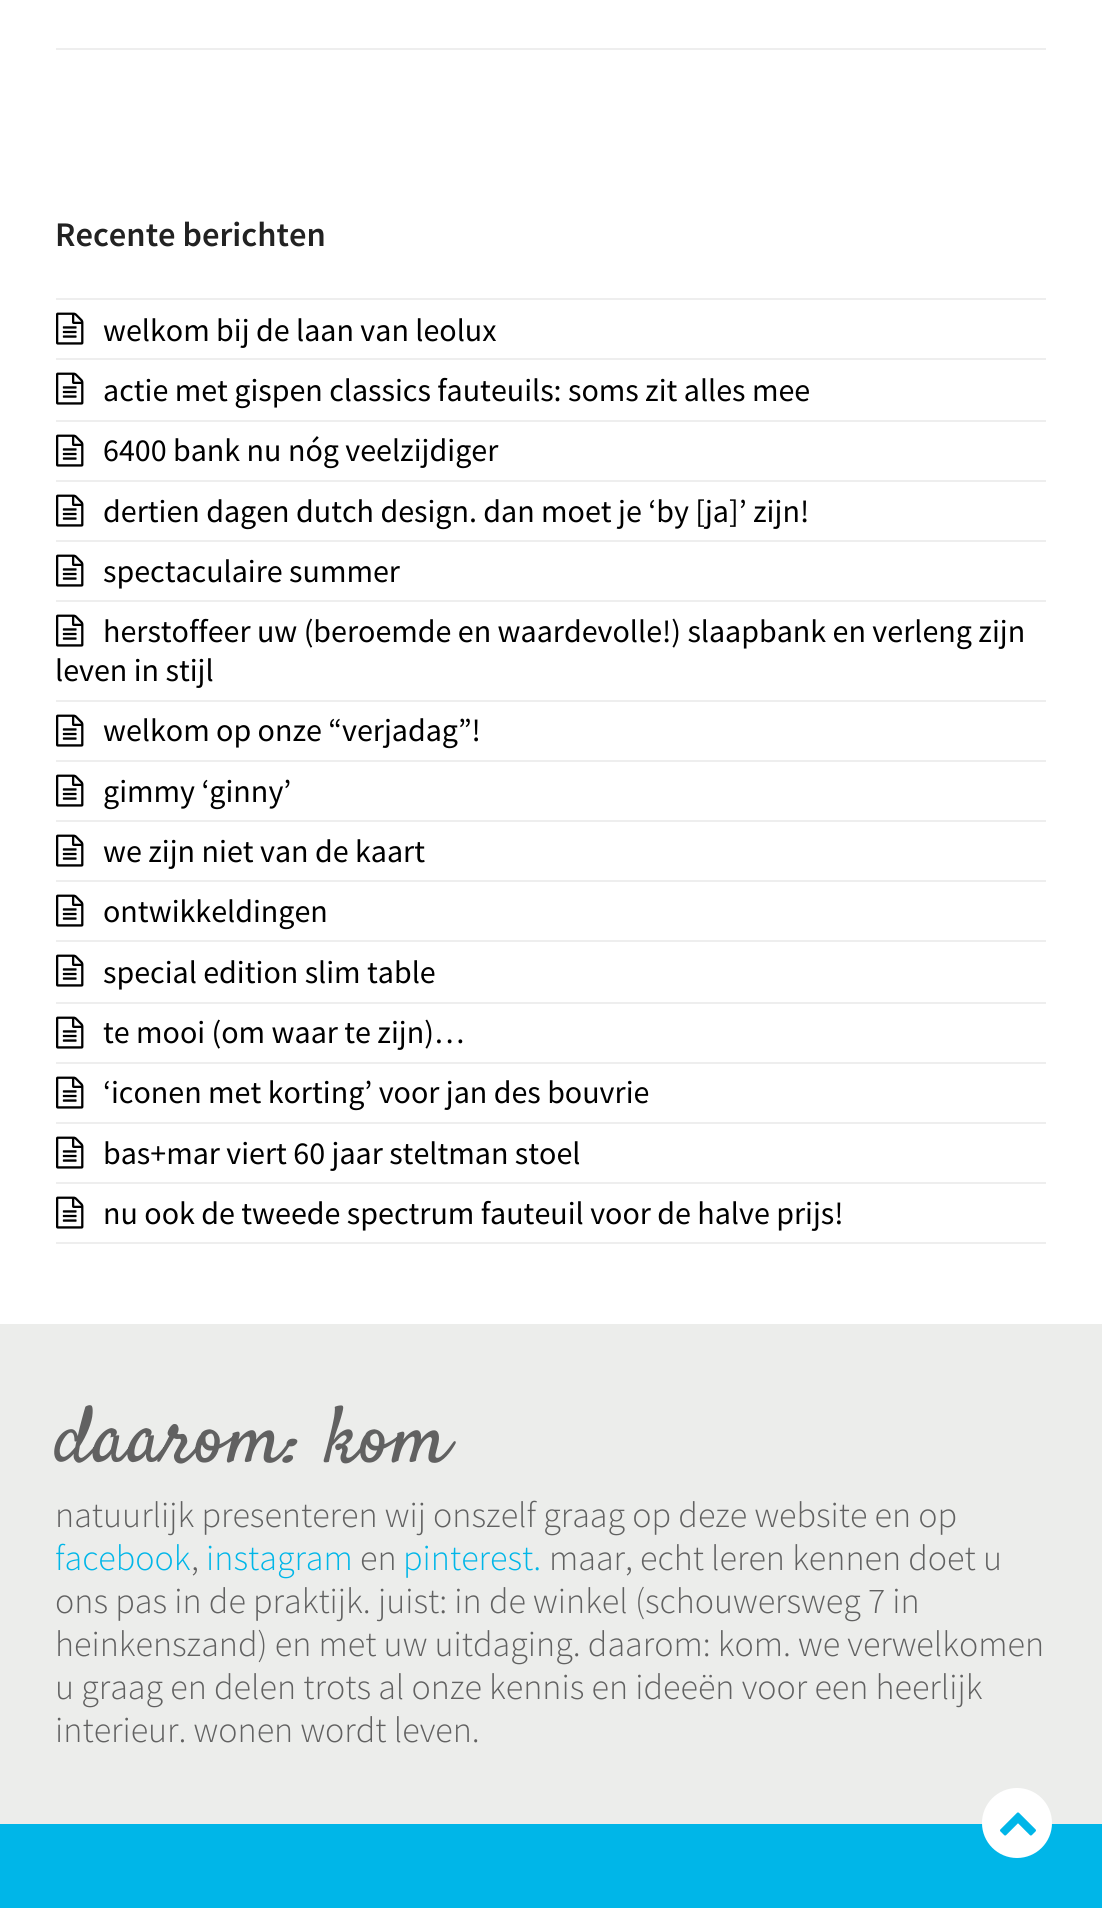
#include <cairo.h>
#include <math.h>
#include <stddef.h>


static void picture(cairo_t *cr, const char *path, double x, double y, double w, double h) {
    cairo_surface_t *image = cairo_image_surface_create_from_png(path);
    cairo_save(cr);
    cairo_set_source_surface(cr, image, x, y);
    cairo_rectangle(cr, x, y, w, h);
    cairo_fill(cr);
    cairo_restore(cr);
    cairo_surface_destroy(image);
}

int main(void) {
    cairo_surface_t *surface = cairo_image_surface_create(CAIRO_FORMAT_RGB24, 1102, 1908);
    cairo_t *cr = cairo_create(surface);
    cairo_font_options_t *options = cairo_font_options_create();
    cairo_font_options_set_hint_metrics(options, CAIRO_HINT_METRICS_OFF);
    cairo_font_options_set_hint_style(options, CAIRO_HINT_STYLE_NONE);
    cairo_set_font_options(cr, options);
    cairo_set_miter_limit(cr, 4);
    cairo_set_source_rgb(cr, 1, 1, 1);
    cairo_paint(cr);
    cairo_set_source_rgb(cr, 0.933, 0.933, 0.933);
    cairo_rectangle(cr, 56, 48, 990, 2);
    cairo_fill(cr);
    cairo_select_font_face(cr, "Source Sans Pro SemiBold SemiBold", CAIRO_FONT_SLANT_NORMAL, CAIRO_FONT_WEIGHT_NORMAL);
    cairo_set_font_size(cr, 34.5);
    cairo_set_source_rgb(cr, 0.133, 0.133, 0.133);
    cairo_move_to(cr, 55, 246);
    cairo_show_text(cr, "Recente berichten");
    cairo_set_source_rgb(cr, 0.933, 0.933, 0.933);
    cairo_rectangle(cr, 56, 298, 990, 2);
    cairo_fill(cr);
    cairo_rectangle(cr, 56, 358, 990, 2);
    cairo_fill(cr);
    picture(cr, "img1.png", 56, 312, 28, 33);
    cairo_select_font_face(cr, "Source Sans Pro", CAIRO_FONT_SLANT_NORMAL, CAIRO_FONT_WEIGHT_NORMAL);
    cairo_set_font_size(cr, 32);
    cairo_set_source_rgb(cr, 0, 0, 0);
    cairo_move_to(cr, 103, 341);
    cairo_show_text(cr, "welkom bij de laan van leolux");
    cairo_set_source_rgb(cr, 0.933, 0.933, 0.933);
    cairo_rectangle(cr, 56, 420, 990, 2);
    cairo_fill(cr);
    picture(cr, "img1.png", 56, 372, 28, 33);
    cairo_set_source_rgb(cr, 0, 0, 0);
    cairo_move_to(cr, 103, 401);
    cairo_show_text(cr, "actie met gispen classics fauteuils: soms zit alles mee");
    cairo_set_source_rgb(cr, 0.933, 0.933, 0.933);
    cairo_rectangle(cr, 56, 480, 990, 2);
    cairo_fill(cr);
    picture(cr, "img1.png", 56, 434, 28, 33);
    cairo_set_source_rgb(cr, 0, 0, 0);
    cairo_move_to(cr, 103, 461);
    cairo_show_text(cr, "6400 bank nu nóg veelzijdiger");
    cairo_set_source_rgb(cr, 0.933, 0.933, 0.933);
    cairo_rectangle(cr, 56, 540, 990, 2);
    cairo_fill(cr);
    picture(cr, "img1.png", 56, 494, 28, 33);
    cairo_set_source_rgb(cr, 0, 0, 0);
    cairo_move_to(cr, 103, 522);
    cairo_show_text(cr, "dertien dagen dutch design. dan moet je ‘by [ja]’ zijn!");
    cairo_set_source_rgb(cr, 0.933, 0.933, 0.933);
    cairo_rectangle(cr, 56, 600, 990, 2);
    cairo_fill(cr);
    picture(cr, "img1.png", 56, 554, 28, 33);
    cairo_set_source_rgb(cr, 0, 0, 0);
    cairo_move_to(cr, 103, 582);
    cairo_show_text(cr, "spectaculaire summer");
    cairo_set_source_rgb(cr, 0.933, 0.933, 0.933);
    cairo_rectangle(cr, 56, 700, 990, 2);
    cairo_fill(cr);
    picture(cr, "img1.png", 56, 614, 28, 33);
    cairo_set_source_rgb(cr, 0, 0, 0);
    cairo_move_to(cr, 103, 642);
    cairo_show_text(cr, "herstoffeer uw (beroemde en waardevolle!) slaapbank en verleng zijn");
    cairo_move_to(cr, 55, 681);
    cairo_show_text(cr, "leven in stijl");
    cairo_set_source_rgb(cr, 0.933, 0.933, 0.933);
    cairo_rectangle(cr, 56, 760, 990, 2);
    cairo_fill(cr);
    picture(cr, "img1.png", 56, 714, 28, 33);
    cairo_set_source_rgb(cr, 0, 0, 0);
    cairo_move_to(cr, 103, 741);
    cairo_show_text(cr, "welkom op onze “verjadag”!");
    cairo_set_source_rgb(cr, 0.933, 0.933, 0.933);
    cairo_rectangle(cr, 56, 820, 990, 2);
    cairo_fill(cr);
    picture(cr, "img1.png", 56, 774, 28, 33);
    cairo_set_source_rgb(cr, 0, 0, 0);
    cairo_move_to(cr, 103, 802);
    cairo_show_text(cr, "gimmy ‘ginny’");
    cairo_set_source_rgb(cr, 0.933, 0.933, 0.933);
    cairo_rectangle(cr, 56, 880, 990, 2);
    cairo_fill(cr);
    picture(cr, "img1.png", 56, 834, 28, 33);
    cairo_set_source_rgb(cr, 0, 0, 0);
    cairo_move_to(cr, 103, 862);
    cairo_show_text(cr, "we zijn niet van de kaart");
    cairo_set_source_rgb(cr, 0.933, 0.933, 0.933);
    cairo_rectangle(cr, 56, 940, 990, 2);
    cairo_fill(cr);
    picture(cr, "img1.png", 56, 894, 28, 33);
    cairo_set_source_rgb(cr, 0, 0, 0);
    cairo_move_to(cr, 103, 922);
    cairo_show_text(cr, "ontwikkeldingen");
    cairo_set_source_rgb(cr, 0.933, 0.933, 0.933);
    cairo_rectangle(cr, 56, 1002, 990, 2);
    cairo_fill(cr);
    picture(cr, "img1.png", 56, 954, 28, 33);
    cairo_set_source_rgb(cr, 0, 0, 0);
    cairo_move_to(cr, 103, 983);
    cairo_show_text(cr, "special edition slim table");
    cairo_set_source_rgb(cr, 0.933, 0.933, 0.933);
    cairo_rectangle(cr, 56, 1062, 990, 2);
    cairo_fill(cr);
    picture(cr, "img1.png", 56, 1016, 28, 33);
    cairo_set_source_rgb(cr, 0, 0, 0);
    cairo_move_to(cr, 103, 1043);
    cairo_show_text(cr, "te mooi (om waar te zijn)…");
    cairo_set_source_rgb(cr, 0.933, 0.933, 0.933);
    cairo_rectangle(cr, 56, 1122, 990, 2);
    cairo_fill(cr);
    picture(cr, "img1.png", 56, 1076, 28, 33);
    cairo_set_source_rgb(cr, 0, 0, 0);
    cairo_move_to(cr, 103, 1103);
    cairo_show_text(cr, "‘iconen met korting’ voor jan des bouvrie");
    cairo_set_source_rgb(cr, 0.933, 0.933, 0.933);
    cairo_rectangle(cr, 56, 1182, 990, 2);
    cairo_fill(cr);
    picture(cr, "img1.png", 56, 1136, 28, 33);
    cairo_set_source_rgb(cr, 0, 0, 0);
    cairo_move_to(cr, 103, 1164);
    cairo_show_text(cr, "bas+mar viert 60 jaar steltman stoel");
    cairo_set_source_rgb(cr, 0.933, 0.933, 0.933);
    cairo_rectangle(cr, 56, 1242, 990, 2);
    cairo_fill(cr);
    picture(cr, "img1.png", 56, 1196, 28, 33);
    cairo_set_source_rgb(cr, 0, 0, 0);
    cairo_move_to(cr, 103, 1224);
    cairo_show_text(cr, "nu ook de tweede spectrum fauteuil voor de halve prijs!");
    cairo_set_source_rgb(cr, 0.925, 0.929, 0.918);
    cairo_rectangle(cr, 0, 1324, 1102, 500);
    cairo_fill(cr);
    cairo_select_font_face(cr, "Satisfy", CAIRO_FONT_SLANT_NORMAL, CAIRO_FONT_WEIGHT_NORMAL);
    cairo_set_font_size(cr, 80);
    cairo_set_source_rgb(cr, 0.38, 0.38, 0.38);
    cairo_move_to(cr, 55, 1461);
    cairo_show_text(cr, "daarom: kom");
    cairo_select_font_face(cr, "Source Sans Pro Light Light", CAIRO_FONT_SLANT_NORMAL, CAIRO_FONT_WEIGHT_NORMAL);
    cairo_set_font_size(cr, 36);
    cairo_move_to(cr, 55, 1527);
    cairo_show_text(cr, "natuurlijk presenteren wij onszelf graag op deze website en op");
    cairo_set_source_rgb(cr, 0, 0.714, 0.91);
    cairo_move_to(cr, 55, 1570);
    cairo_show_text(cr, "facebook");
    cairo_set_source_rgb(cr, 0.38, 0.38, 0.38);
    cairo_move_to(cr, 191, 1570);
    cairo_show_text(cr, ",");
    cairo_set_source_rgb(cr, 0, 0.714, 0.91);
    cairo_move_to(cr, 206, 1570);
    cairo_show_text(cr, "instagram");
    cairo_set_source_rgb(cr, 0.38, 0.38, 0.38);
    cairo_move_to(cr, 360, 1570);
    cairo_show_text(cr, "en");
    cairo_set_source_rgb(cr, 0, 0.714, 0.91);
    cairo_move_to(cr, 403, 1570);
    cairo_show_text(cr, "pinterest.");
    cairo_set_source_rgb(cr, 0.38, 0.38, 0.38);
    cairo_move_to(cr, 549, 1570);
    cairo_show_text(cr, "maar, echt leren kennen doet u");
    cairo_move_to(cr, 55, 1613);
    cairo_show_text(cr, "ons pas in de praktijk. juist: in de winkel (schouwersweg 7 in");
    cairo_move_to(cr, 55, 1656);
    cairo_show_text(cr, "heinkenszand) en met uw uitdaging. daarom: kom. we verwelkomen");
    cairo_move_to(cr, 55, 1699);
    cairo_show_text(cr, "u graag en delen trots al onze kennis en ideeën voor een heerlijk");
    cairo_move_to(cr, 55, 1742);
    cairo_show_text(cr, "interieur. wonen wordt leven.");
    cairo_set_source_rgb(cr, 0, 0.714, 0.91);
    cairo_rectangle(cr, 0, 1824, 1102, 84);
    cairo_fill(cr);
    cairo_set_source_rgb(cr, 1, 1, 1);
    cairo_arc(cr, 1017, 1823, 35, 0, 2 * M_PI);
    cairo_fill(cr);
    picture(cr, "img2.png", 1000, 1812, 36, 24);
    cairo_surface_write_to_png(surface, "page.png");
    cairo_font_options_destroy(options);
    cairo_destroy(cr);
    cairo_surface_destroy(surface);
    return 0;
}
